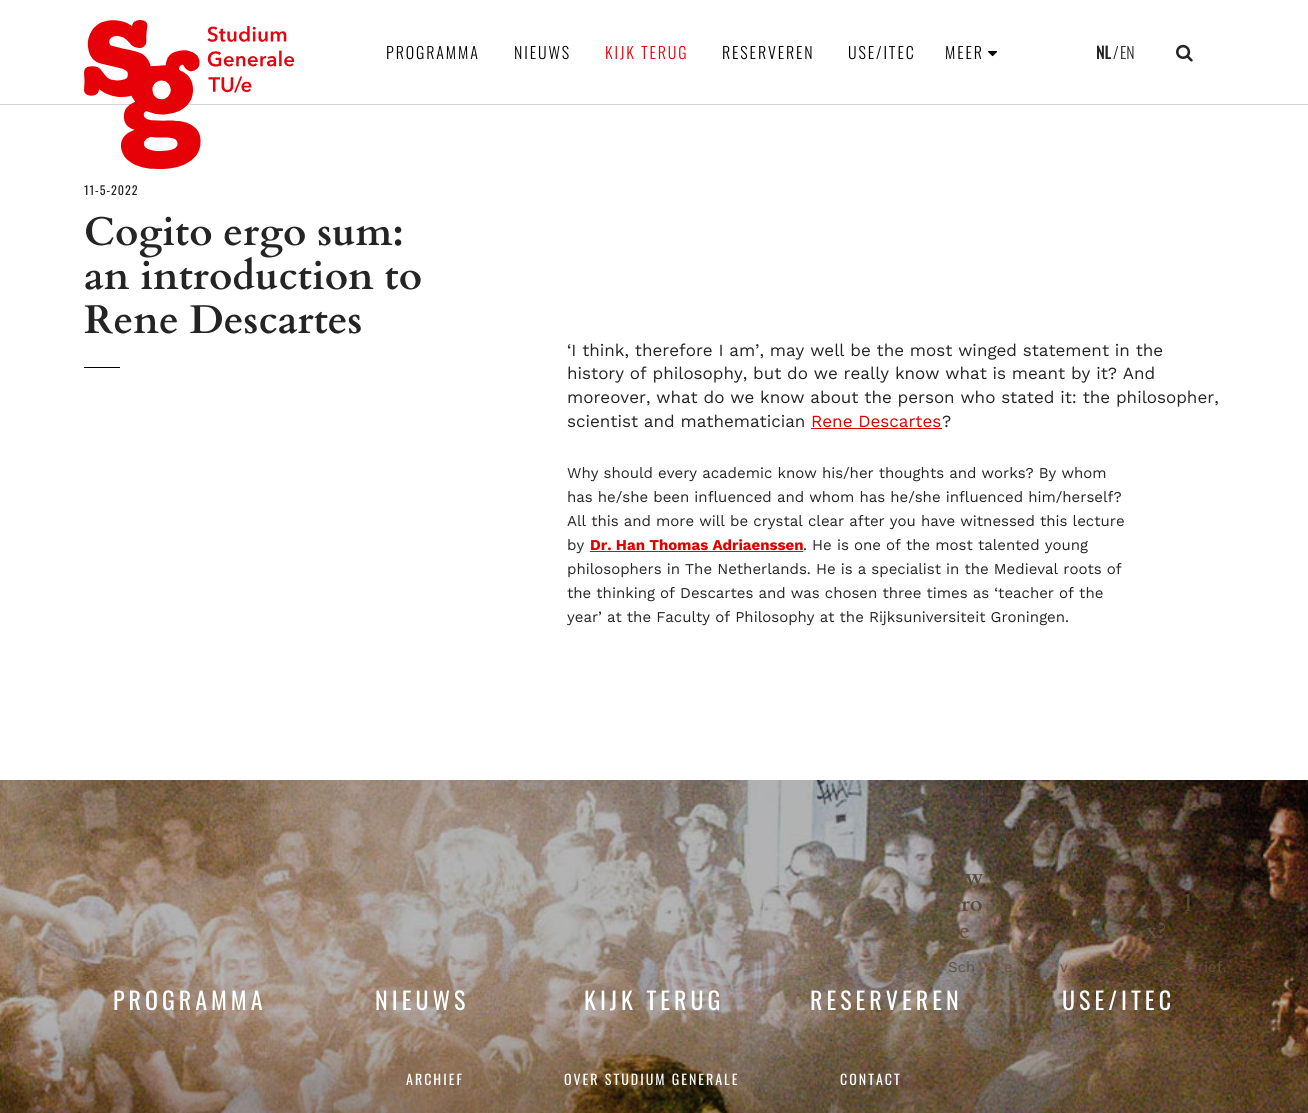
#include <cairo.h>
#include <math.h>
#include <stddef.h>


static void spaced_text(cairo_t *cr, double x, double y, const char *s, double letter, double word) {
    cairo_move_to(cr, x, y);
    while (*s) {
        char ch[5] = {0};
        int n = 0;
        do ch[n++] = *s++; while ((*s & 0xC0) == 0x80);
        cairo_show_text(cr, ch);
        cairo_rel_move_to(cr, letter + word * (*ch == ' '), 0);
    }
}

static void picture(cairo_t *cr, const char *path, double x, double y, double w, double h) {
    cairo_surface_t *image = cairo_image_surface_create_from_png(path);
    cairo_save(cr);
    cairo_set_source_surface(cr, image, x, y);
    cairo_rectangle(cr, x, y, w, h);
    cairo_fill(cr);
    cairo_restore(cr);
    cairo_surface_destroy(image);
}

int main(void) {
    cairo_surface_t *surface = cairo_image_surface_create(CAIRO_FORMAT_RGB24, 1308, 1113);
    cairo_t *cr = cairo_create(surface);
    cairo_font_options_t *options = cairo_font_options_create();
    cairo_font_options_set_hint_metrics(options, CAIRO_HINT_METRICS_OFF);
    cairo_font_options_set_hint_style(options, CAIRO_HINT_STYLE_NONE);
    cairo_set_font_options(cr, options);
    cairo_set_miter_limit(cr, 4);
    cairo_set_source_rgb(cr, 1, 1, 1);
    cairo_paint(cr);
    cairo_set_source_rgb(cr, 0.831, 0.831, 0.831);
    cairo_rectangle(cr, 0, 104, 1308, 1);
    cairo_fill(cr);
    picture(cr, "img1.png", 84, 20, 211, 149);
    cairo_select_font_face(cr, "Oswald Light", CAIRO_FONT_SLANT_NORMAL, CAIRO_FONT_WEIGHT_NORMAL);
    cairo_set_font_size(cr, 16);
    cairo_set_source_rgb(cr, 0, 0, 0);
    spaced_text(cr, 386, 59, "PROGRAMMA", 1.9, 0);
    spaced_text(cr, 514, 59, "NIEUWS", 1.9, 0);
    cairo_set_source_rgb(cr, 0.902, 0, 0.031);
    spaced_text(cr, 605, 59, "KIJK TERUG", 1.9, 0);
    cairo_set_source_rgb(cr, 0, 0, 0);
    spaced_text(cr, 722, 59, "RESERVEREN", 1.9, 0);
    spaced_text(cr, 848, 59, "USE/ITEC", 1.9, 0);
    spaced_text(cr, 945, 59, "MEER", 1.9, 0);
    picture(cr, "img2.png", 988, 51, 10, 6);
    cairo_select_font_face(cr, "Oswald", CAIRO_FONT_SLANT_NORMAL, CAIRO_FONT_WEIGHT_BOLD);
    cairo_set_source_rgb(cr, 0.141, 0.141, 0.141);
    cairo_move_to(cr, 1096, 59);
    cairo_show_text(cr, "NL");
    cairo_select_font_face(cr, "Oswald Light", CAIRO_FONT_SLANT_NORMAL, CAIRO_FONT_WEIGHT_NORMAL);
    cairo_move_to(cr, 1113, 59);
    cairo_show_text(cr, "/");
    cairo_move_to(cr, 1120, 59);
    cairo_show_text(cr, "EN");
    picture(cr, "img3.png", 1176, 44, 17, 18);
    cairo_select_font_face(cr, "Oswald", CAIRO_FONT_SLANT_NORMAL, CAIRO_FONT_WEIGHT_NORMAL);
    cairo_set_font_size(cr, 12);
    spaced_text(cr, 84, 195, "11-5-2022", 1, 0);
    cairo_select_font_face(cr, "Cardo", CAIRO_FONT_SLANT_NORMAL, CAIRO_FONT_WEIGHT_BOLD);
    cairo_set_font_size(cr, 40);
    cairo_move_to(cr, 84, 245);
    cairo_show_text(cr, "Cogito ergo sum:");
    cairo_move_to(cr, 84, 289);
    cairo_show_text(cr, "an introduction to");
    cairo_move_to(cr, 84, 333);
    cairo_show_text(cr, "Rene Descartes");
    cairo_set_source_rgb(cr, 0, 0, 0);
    cairo_rectangle(cr, 84, 367, 36, 1);
    cairo_fill(cr);
    cairo_select_font_face(cr, "Work Sans", CAIRO_FONT_SLANT_NORMAL, CAIRO_FONT_WEIGHT_NORMAL);
    cairo_set_font_size(cr, 17);
    cairo_set_source_rgb(cr, 0.141, 0.141, 0.141);
    cairo_move_to(cr, 567, 356);
    cairo_show_text(cr, "‘I think, therefore I am’, may well be the most winged statement in the");
    cairo_move_to(cr, 567, 379);
    cairo_show_text(cr, "history of philosophy, but do we really know what is meant by it? And");
    cairo_move_to(cr, 567, 403);
    cairo_show_text(cr, "moreover, what do we know about the person who stated it: the philosopher,");
    cairo_move_to(cr, 567, 427);
    cairo_show_text(cr, "scientist and mathematician");
    cairo_set_source_rgb(cr, 0.878, 0, 0);
    cairo_move_to(cr, 811, 427);
    cairo_show_text(cr, "Rene Descartes");
    cairo_rectangle(cr, 811, 428, 131, 1);
    cairo_fill(cr);
    cairo_set_source_rgb(cr, 0.141, 0.141, 0.141);
    cairo_move_to(cr, 942, 427);
    cairo_show_text(cr, "?");
    cairo_set_font_size(cr, 15);
    cairo_move_to(cr, 567, 478);
    cairo_show_text(cr, "Why should every academic know his/her thoughts and works? By whom");
    cairo_move_to(cr, 567, 502);
    cairo_show_text(cr, "has he/she been influenced and whom has he/she influenced him/herself?");
    cairo_move_to(cr, 567, 526);
    cairo_show_text(cr, "All this and more will be crystal clear after you have witnessed this lecture");
    cairo_move_to(cr, 567, 550);
    cairo_show_text(cr, "by");
    cairo_select_font_face(cr, "Work Sans", CAIRO_FONT_SLANT_NORMAL, CAIRO_FONT_WEIGHT_BOLD);
    cairo_set_source_rgb(cr, 0.878, 0, 0);
    cairo_move_to(cr, 590, 550);
    cairo_show_text(cr, "Dr. Han Thomas Adriaenssen");
    cairo_rectangle(cr, 590, 551, 213, 1);
    cairo_fill(cr);
    cairo_select_font_face(cr, "Work Sans", CAIRO_FONT_SLANT_NORMAL, CAIRO_FONT_WEIGHT_NORMAL);
    cairo_set_source_rgb(cr, 0.141, 0.141, 0.141);
    cairo_move_to(cr, 803, 550);
    cairo_show_text(cr, ". He is one of the most talented young");
    cairo_move_to(cr, 567, 574);
    cairo_show_text(cr, "philosophers in The Netherlands. He is a specialist in the Medieval roots of");
    cairo_move_to(cr, 567, 598);
    cairo_show_text(cr, "the thinking of Descartes and was chosen three times as ‘teacher of the");
    cairo_move_to(cr, 567, 622);
    cairo_show_text(cr, "year’ at the Faculty of Philosophy at the Rijksuniversiteit Groningen.");
    picture(cr, "img4.png", 0, 780, 1308, 333);
    cairo_select_font_face(cr, "Cardo", CAIRO_FONT_SLANT_NORMAL, CAIRO_FONT_WEIGHT_BOLD);
    cairo_set_font_size(cr, 22);
    cairo_set_source_rgb(cr, 0.349, 0.29, 0.22);
    cairo_move_to(cr, 965, 884);
    cairo_show_text(cr, "w");
    cairo_move_to(cr, 961, 911);
    cairo_show_text(cr, "ro");
    cairo_move_to(cr, 1185, 911);
    cairo_show_text(cr, "l");
    cairo_set_source_rgb(cr, 0.4, 0.325, 0.255);
    cairo_move_to(cr, 959, 938);
    cairo_show_text(cr, "e");
    cairo_move_to(cr, 1146, 938);
    cairo_show_text(cr, "x?");
    cairo_select_font_face(cr, "Work Sans", CAIRO_FONT_SLANT_NORMAL, CAIRO_FONT_WEIGHT_NORMAL);
    cairo_set_font_size(cr, 15);
    cairo_move_to(cr, 948, 972);
    cairo_show_text(cr, "Sch");
    cairo_move_to(cr, 1004, 972);
    cairo_show_text(cr, "e");
    cairo_move_to(cr, 1060, 972);
    cairo_show_text(cr, "v");
    cairo_move_to(cr, 1198, 972);
    cairo_show_text(cr, "rief.");
    cairo_select_font_face(cr, "Oswald", CAIRO_FONT_SLANT_NORMAL, CAIRO_FONT_WEIGHT_NORMAL);
    cairo_set_font_size(cr, 24);
    cairo_set_source_rgb(cr, 1, 1, 1);
    spaced_text(cr, 113, 1010, "PROGRAMMA", 4, 0);
    spaced_text(cr, 375, 1010, "NIEUWS", 4, 0);
    spaced_text(cr, 584, 1010, "KIJK TERUG", 4, 0);
    spaced_text(cr, 810, 1010, "RESERVEREN", 4, 0);
    spaced_text(cr, 1062, 1010, "USE/ITEC", 4, 0);
    cairo_set_font_size(cr, 14);
    spaced_text(cr, 406, 1085, "ARCHIEF", 2, 0);
    spaced_text(cr, 564, 1085, "OVER STUDIUM GENERALE", 2, 0);
    spaced_text(cr, 840, 1085, "CONTACT", 2, 0);
    cairo_surface_write_to_png(surface, "page.png");
    cairo_font_options_destroy(options);
    cairo_destroy(cr);
    cairo_surface_destroy(surface);
    return 0;
}
